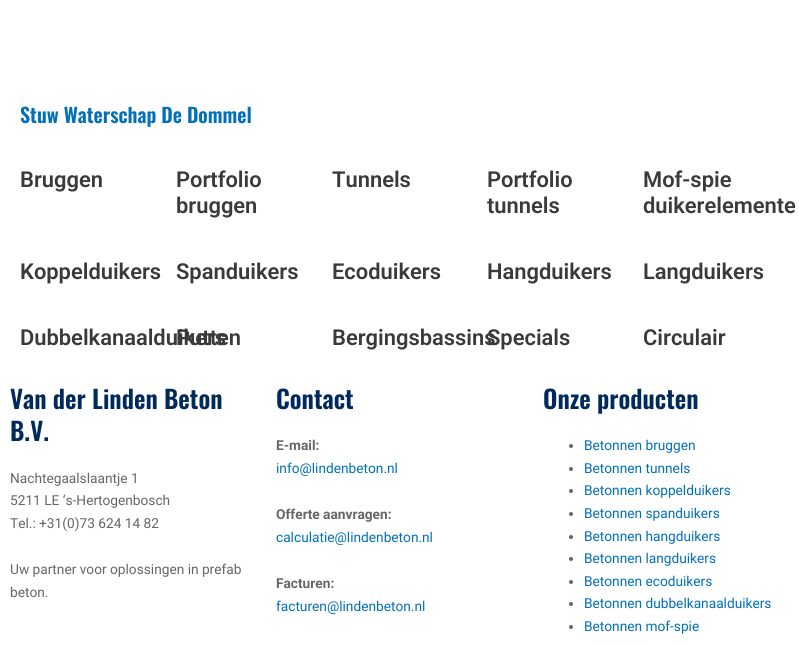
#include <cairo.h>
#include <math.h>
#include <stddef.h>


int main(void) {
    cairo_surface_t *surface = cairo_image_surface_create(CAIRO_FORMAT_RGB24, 799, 646);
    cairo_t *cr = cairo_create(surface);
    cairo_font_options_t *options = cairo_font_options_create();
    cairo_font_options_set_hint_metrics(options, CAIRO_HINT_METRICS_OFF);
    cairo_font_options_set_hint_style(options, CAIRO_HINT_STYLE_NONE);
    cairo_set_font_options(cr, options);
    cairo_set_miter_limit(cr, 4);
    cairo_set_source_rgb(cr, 1, 1, 1);
    cairo_paint(cr);
    cairo_select_font_face(cr, "Oswald SemiBold", CAIRO_FONT_SLANT_NORMAL, CAIRO_FONT_WEIGHT_NORMAL);
    cairo_set_font_size(cr, 20);
    cairo_set_source_rgb(cr, 0.004, 0.439, 0.725);
    cairo_move_to(cr, 20, 123);
    cairo_show_text(cr, "Stuw Waterschap De Dommel");
    cairo_select_font_face(cr, "Roboto SemiBold", CAIRO_FONT_SLANT_NORMAL, CAIRO_FONT_WEIGHT_NORMAL);
    cairo_set_font_size(cr, 21.9);
    cairo_set_source_rgb(cr, 0.227, 0.227, 0.227);
    cairo_move_to(cr, 20, 187);
    cairo_show_text(cr, "Bruggen");
    cairo_move_to(cr, 176, 187);
    cairo_show_text(cr, "Portfolio");
    cairo_move_to(cr, 176, 213);
    cairo_show_text(cr, "bruggen");
    cairo_move_to(cr, 332, 187);
    cairo_show_text(cr, "Tunnels");
    cairo_move_to(cr, 487, 187);
    cairo_show_text(cr, "Portfolio");
    cairo_move_to(cr, 487, 213);
    cairo_show_text(cr, "tunnels");
    cairo_move_to(cr, 643, 187);
    cairo_show_text(cr, "Mof-spie");
    cairo_move_to(cr, 643, 213);
    cairo_show_text(cr, "duikerelemente");
    cairo_move_to(cr, 20, 279);
    cairo_show_text(cr, "Koppelduikers");
    cairo_move_to(cr, 176, 279);
    cairo_show_text(cr, "Spanduikers");
    cairo_move_to(cr, 332, 279);
    cairo_show_text(cr, "Ecoduikers");
    cairo_move_to(cr, 487, 279);
    cairo_show_text(cr, "Hangduikers");
    cairo_move_to(cr, 643, 279);
    cairo_show_text(cr, "Langduikers");
    cairo_move_to(cr, 20, 345);
    cairo_show_text(cr, "Dubbelkanaalduikers");
    cairo_move_to(cr, 332, 345);
    cairo_show_text(cr, "Bergingsbassins");
    cairo_move_to(cr, 487, 345);
    cairo_show_text(cr, "Specials");
    cairo_move_to(cr, 643, 345);
    cairo_show_text(cr, "Circulair");
    cairo_move_to(cr, 176, 345);
    cairo_show_text(cr, "Putten");
    cairo_select_font_face(cr, "Oswald SemiBold", CAIRO_FONT_SLANT_NORMAL, CAIRO_FONT_WEIGHT_NORMAL);
    cairo_set_font_size(cr, 25);
    cairo_set_source_rgb(cr, 0, 0.165, 0.357);
    cairo_move_to(cr, 10, 409);
    cairo_show_text(cr, "Van der Linden Beton");
    cairo_move_to(cr, 10, 441);
    cairo_show_text(cr, "B.V.");
    cairo_select_font_face(cr, "Roboto", CAIRO_FONT_SLANT_NORMAL, CAIRO_FONT_WEIGHT_NORMAL);
    cairo_set_font_size(cr, 13.7);
    cairo_set_source_rgb(cr, 0.4, 0.4, 0.4);
    cairo_move_to(cr, 10, 483);
    cairo_show_text(cr, "Nachtegaalslaantje 1");
    cairo_move_to(cr, 10, 505);
    cairo_show_text(cr, "5211 LE ‘s-Hertogenbosch");
    cairo_move_to(cr, 10, 528);
    cairo_show_text(cr, "Tel.: +31(0)73 624 14 82");
    cairo_move_to(cr, 10, 574);
    cairo_show_text(cr, "Uw partner voor oplossingen in prefab");
    cairo_move_to(cr, 10, 597);
    cairo_show_text(cr, "beton.");
    cairo_select_font_face(cr, "Oswald SemiBold", CAIRO_FONT_SLANT_NORMAL, CAIRO_FONT_WEIGHT_NORMAL);
    cairo_set_font_size(cr, 25);
    cairo_set_source_rgb(cr, 0, 0.165, 0.357);
    cairo_move_to(cr, 276, 409);
    cairo_show_text(cr, "Contact");
    cairo_select_font_face(cr, "Roboto", CAIRO_FONT_SLANT_NORMAL, CAIRO_FONT_WEIGHT_BOLD);
    cairo_set_font_size(cr, 13.7);
    cairo_set_source_rgb(cr, 0.4, 0.4, 0.4);
    cairo_move_to(cr, 276, 450);
    cairo_show_text(cr, "E-mail:");
    cairo_select_font_face(cr, "Roboto", CAIRO_FONT_SLANT_NORMAL, CAIRO_FONT_WEIGHT_NORMAL);
    cairo_set_source_rgb(cr, 0.004, 0.439, 0.725);
    cairo_move_to(cr, 276, 473);
    cairo_show_text(cr, "info@lindenbeton.nl");
    cairo_select_font_face(cr, "Roboto", CAIRO_FONT_SLANT_NORMAL, CAIRO_FONT_WEIGHT_BOLD);
    cairo_set_source_rgb(cr, 0.4, 0.4, 0.4);
    cairo_move_to(cr, 276, 519);
    cairo_show_text(cr, "Offerte aanvragen:");
    cairo_select_font_face(cr, "Roboto", CAIRO_FONT_SLANT_NORMAL, CAIRO_FONT_WEIGHT_NORMAL);
    cairo_set_source_rgb(cr, 0.004, 0.439, 0.725);
    cairo_move_to(cr, 276, 542);
    cairo_show_text(cr, "calculatie@lindenbeton.nl");
    cairo_select_font_face(cr, "Roboto", CAIRO_FONT_SLANT_NORMAL, CAIRO_FONT_WEIGHT_BOLD);
    cairo_set_source_rgb(cr, 0.4, 0.4, 0.4);
    cairo_move_to(cr, 276, 588);
    cairo_show_text(cr, "Facturen:");
    cairo_select_font_face(cr, "Roboto", CAIRO_FONT_SLANT_NORMAL, CAIRO_FONT_WEIGHT_NORMAL);
    cairo_set_source_rgb(cr, 0.004, 0.439, 0.725);
    cairo_move_to(cr, 276, 611);
    cairo_show_text(cr, "facturen@lindenbeton.nl");
    cairo_select_font_face(cr, "Oswald SemiBold", CAIRO_FONT_SLANT_NORMAL, CAIRO_FONT_WEIGHT_NORMAL);
    cairo_set_font_size(cr, 25);
    cairo_set_source_rgb(cr, 0, 0.165, 0.357);
    cairo_move_to(cr, 543, 409);
    cairo_show_text(cr, "Onze producten");
    cairo_set_source_rgb(cr, 0.4, 0.4, 0.4);
    cairo_new_path(cr);
    cairo_arc(cr, 571, 446, 2, 0, 2 * M_PI);
    cairo_fill(cr);
    cairo_select_font_face(cr, "Roboto", CAIRO_FONT_SLANT_NORMAL, CAIRO_FONT_WEIGHT_NORMAL);
    cairo_set_font_size(cr, 13.7);
    cairo_set_source_rgb(cr, 0.004, 0.439, 0.725);
    cairo_move_to(cr, 584, 450);
    cairo_show_text(cr, "Betonnen bruggen");
    cairo_set_source_rgb(cr, 0.4, 0.4, 0.4);
    cairo_new_path(cr);
    cairo_arc(cr, 571, 469, 2, 0, 2 * M_PI);
    cairo_fill(cr);
    cairo_set_source_rgb(cr, 0.004, 0.439, 0.725);
    cairo_move_to(cr, 584, 473);
    cairo_show_text(cr, "Betonnen tunnels");
    cairo_set_source_rgb(cr, 0.4, 0.4, 0.4);
    cairo_new_path(cr);
    cairo_arc(cr, 571, 491, 2, 0, 2 * M_PI);
    cairo_fill(cr);
    cairo_set_source_rgb(cr, 0.004, 0.439, 0.725);
    cairo_move_to(cr, 584, 495);
    cairo_show_text(cr, "Betonnen koppelduikers");
    cairo_set_source_rgb(cr, 0.4, 0.4, 0.4);
    cairo_new_path(cr);
    cairo_arc(cr, 571, 514, 2, 0, 2 * M_PI);
    cairo_fill(cr);
    cairo_set_source_rgb(cr, 0.004, 0.439, 0.725);
    cairo_move_to(cr, 584, 518);
    cairo_show_text(cr, "Betonnen spanduikers");
    cairo_set_source_rgb(cr, 0.4, 0.4, 0.4);
    cairo_new_path(cr);
    cairo_arc(cr, 571, 537, 2, 0, 2 * M_PI);
    cairo_fill(cr);
    cairo_set_source_rgb(cr, 0.004, 0.439, 0.725);
    cairo_move_to(cr, 584, 541);
    cairo_show_text(cr, "Betonnen hangduikers");
    cairo_set_source_rgb(cr, 0.4, 0.4, 0.4);
    cairo_new_path(cr);
    cairo_arc(cr, 571, 559, 2, 0, 2 * M_PI);
    cairo_fill(cr);
    cairo_set_source_rgb(cr, 0.004, 0.439, 0.725);
    cairo_move_to(cr, 584, 563);
    cairo_show_text(cr, "Betonnen langduikers");
    cairo_set_source_rgb(cr, 0.4, 0.4, 0.4);
    cairo_new_path(cr);
    cairo_arc(cr, 571, 582, 2, 0, 2 * M_PI);
    cairo_fill(cr);
    cairo_set_source_rgb(cr, 0.004, 0.439, 0.725);
    cairo_move_to(cr, 584, 586);
    cairo_show_text(cr, "Betonnen ecoduikers");
    cairo_set_source_rgb(cr, 0.4, 0.4, 0.4);
    cairo_new_path(cr);
    cairo_arc(cr, 571, 604, 2, 0, 2 * M_PI);
    cairo_fill(cr);
    cairo_set_source_rgb(cr, 0.004, 0.439, 0.725);
    cairo_move_to(cr, 584, 608);
    cairo_show_text(cr, "Betonnen dubbelkanaalduikers");
    cairo_set_source_rgb(cr, 0.4, 0.4, 0.4);
    cairo_new_path(cr);
    cairo_arc(cr, 571, 627, 2, 0, 2 * M_PI);
    cairo_fill(cr);
    cairo_set_source_rgb(cr, 0.004, 0.439, 0.725);
    cairo_move_to(cr, 584, 631);
    cairo_show_text(cr, "Betonnen mof-spie");
    cairo_surface_write_to_png(surface, "page.png");
    cairo_font_options_destroy(options);
    cairo_destroy(cr);
    cairo_surface_destroy(surface);
    return 0;
}
